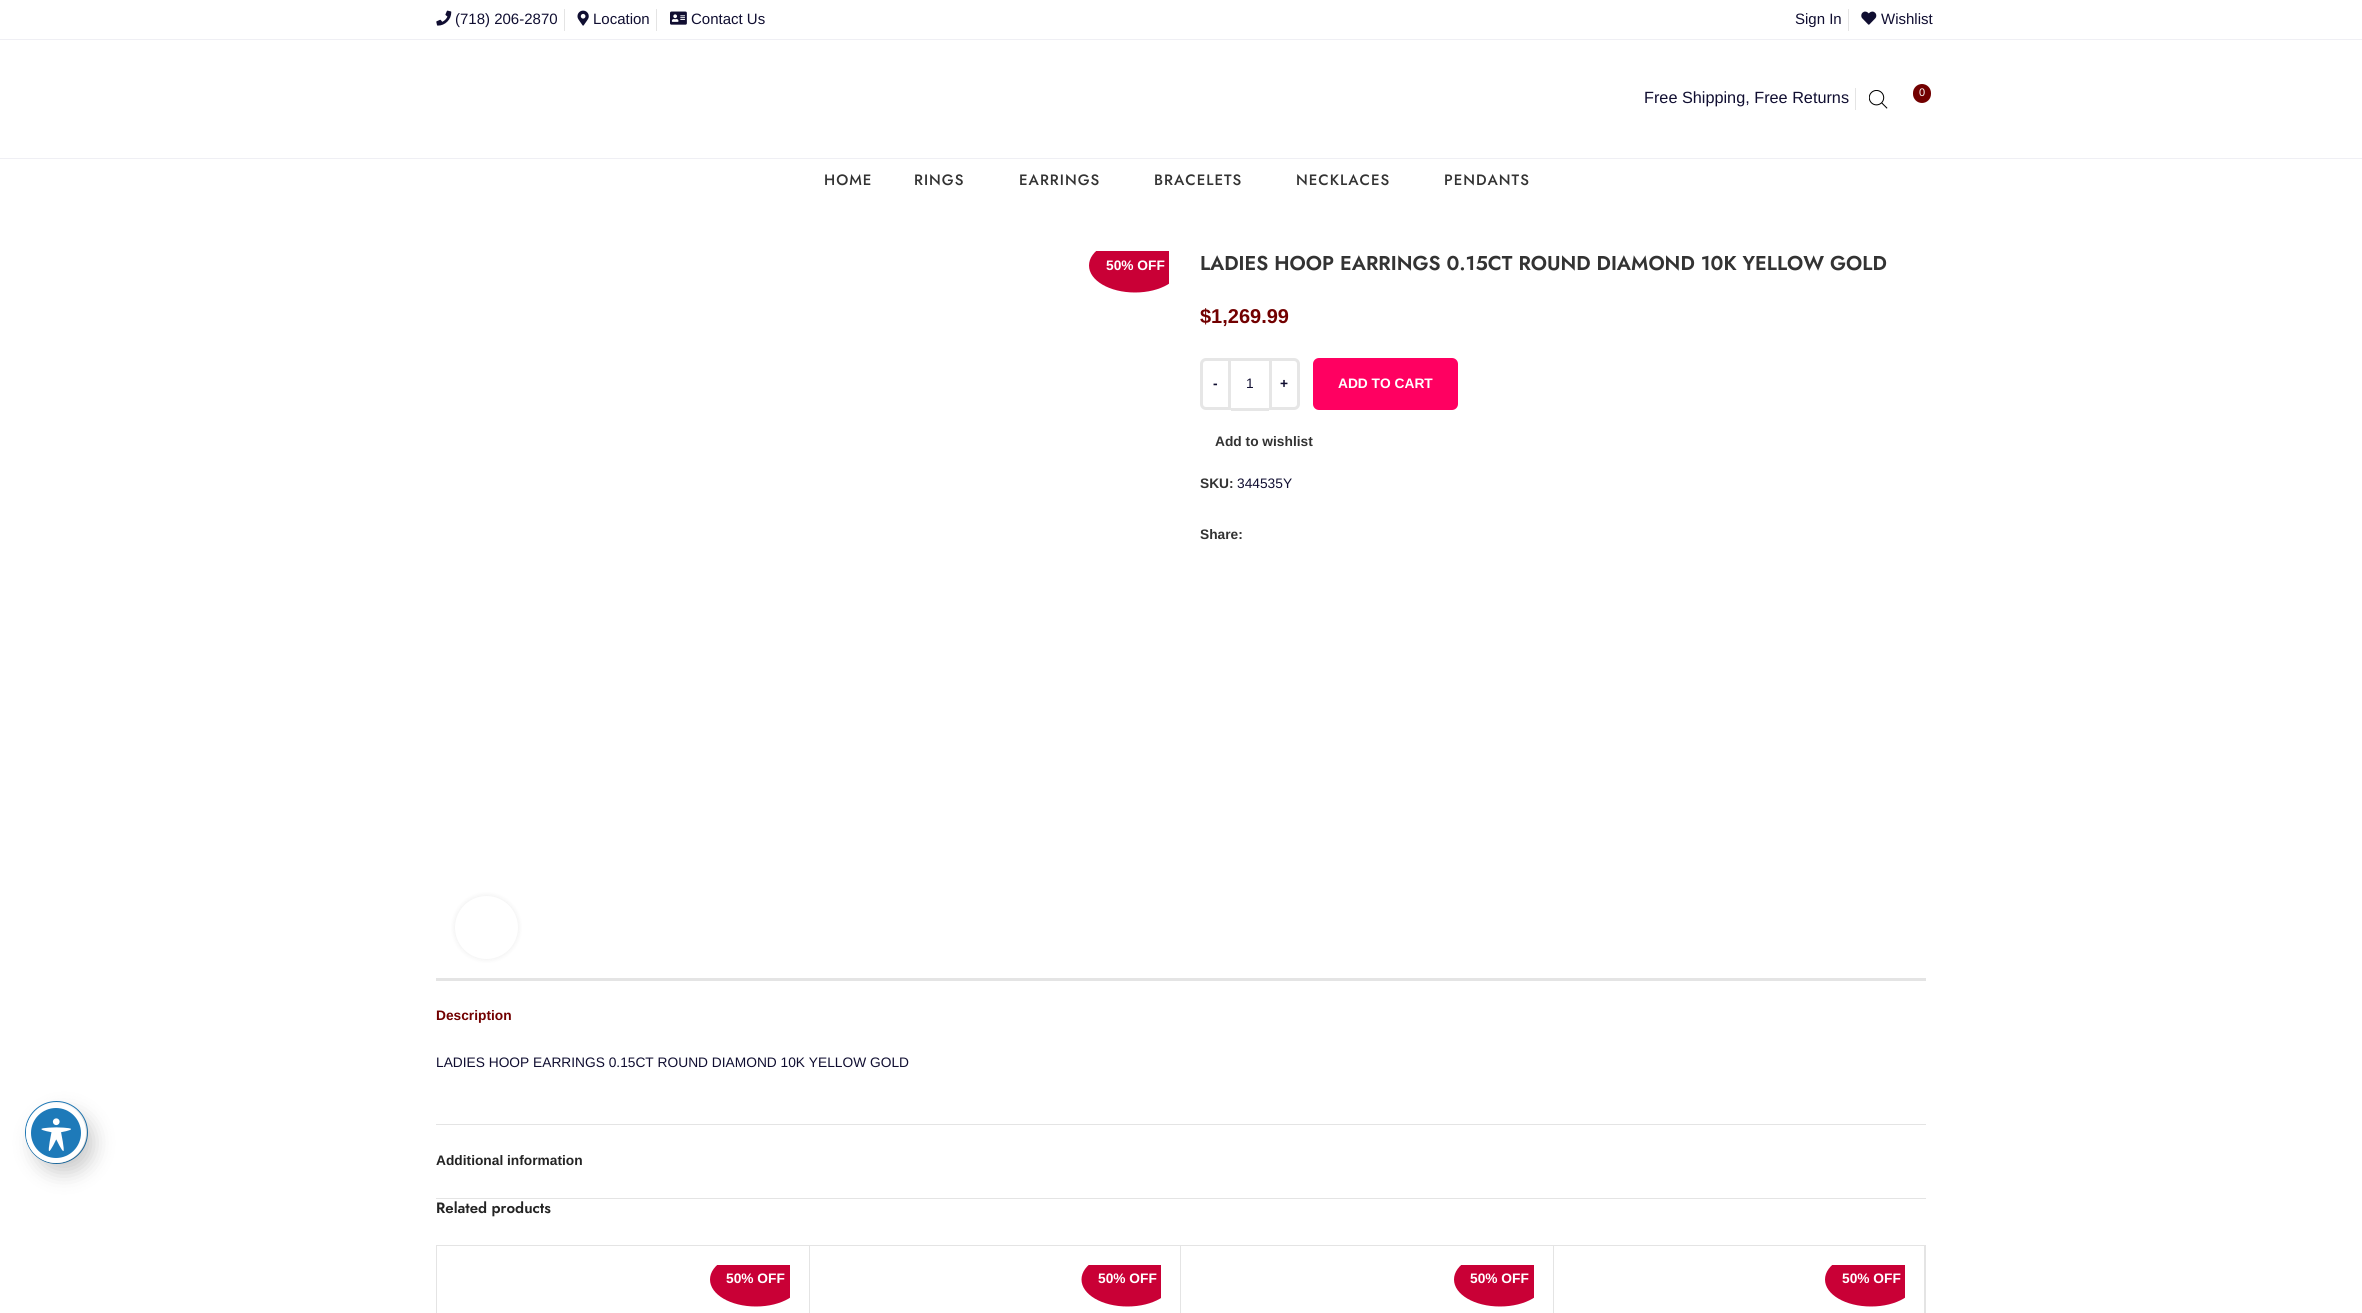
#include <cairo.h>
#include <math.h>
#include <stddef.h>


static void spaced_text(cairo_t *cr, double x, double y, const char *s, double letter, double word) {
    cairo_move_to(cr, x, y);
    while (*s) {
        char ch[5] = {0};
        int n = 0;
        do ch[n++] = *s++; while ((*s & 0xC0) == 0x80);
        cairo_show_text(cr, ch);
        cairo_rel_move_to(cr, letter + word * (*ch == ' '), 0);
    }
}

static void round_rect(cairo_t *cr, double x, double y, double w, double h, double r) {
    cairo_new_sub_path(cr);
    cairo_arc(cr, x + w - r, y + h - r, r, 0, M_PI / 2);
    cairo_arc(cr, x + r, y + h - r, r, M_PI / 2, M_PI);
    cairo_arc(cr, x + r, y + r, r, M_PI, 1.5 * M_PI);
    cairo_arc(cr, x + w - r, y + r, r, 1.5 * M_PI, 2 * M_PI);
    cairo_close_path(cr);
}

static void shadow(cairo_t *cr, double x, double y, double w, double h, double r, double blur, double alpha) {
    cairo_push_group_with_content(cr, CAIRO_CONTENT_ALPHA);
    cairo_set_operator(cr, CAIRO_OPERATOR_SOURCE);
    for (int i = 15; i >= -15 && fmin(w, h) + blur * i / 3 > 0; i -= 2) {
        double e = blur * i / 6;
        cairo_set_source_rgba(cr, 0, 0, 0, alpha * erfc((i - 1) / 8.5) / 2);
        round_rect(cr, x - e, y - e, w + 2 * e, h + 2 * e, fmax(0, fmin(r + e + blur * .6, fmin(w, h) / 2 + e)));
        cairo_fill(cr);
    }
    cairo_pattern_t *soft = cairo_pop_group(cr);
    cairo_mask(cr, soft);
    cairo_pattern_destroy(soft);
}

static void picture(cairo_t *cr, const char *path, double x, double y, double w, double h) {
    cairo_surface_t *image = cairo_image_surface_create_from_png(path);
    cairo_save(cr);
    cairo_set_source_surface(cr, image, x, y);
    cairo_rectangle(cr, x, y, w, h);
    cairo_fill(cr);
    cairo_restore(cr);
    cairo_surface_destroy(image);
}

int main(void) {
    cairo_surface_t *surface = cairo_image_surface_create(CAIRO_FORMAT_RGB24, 2362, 1313);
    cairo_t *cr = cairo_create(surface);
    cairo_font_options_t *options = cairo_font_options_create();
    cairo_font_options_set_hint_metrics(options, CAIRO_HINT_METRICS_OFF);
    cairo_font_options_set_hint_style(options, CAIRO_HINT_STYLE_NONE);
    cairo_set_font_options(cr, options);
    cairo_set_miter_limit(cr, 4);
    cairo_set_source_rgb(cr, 1, 1, 1);
    cairo_paint(cr);
    cairo_arc(cr, 56.5, 1132.5, 31, 0, 2 * M_PI);
    cairo_set_source_rgb(cr, 0.118, 0.478, 0.725);
    cairo_set_line_width(cr, 1);
    cairo_stroke(cr);
    cairo_set_source_rgb(cr, 0, 0, 0);
    shadow(cr, 34, 1113, 60, 60, 30, 10, 0.2);
    cairo_set_source_rgb(cr, 0.118, 0.478, 0.725);
    cairo_arc(cr, 56, 1133, 27.5, 0, 2 * M_PI);
    cairo_fill_preserve(cr);
    cairo_set_source_rgb(cr, 1, 1, 1);
    cairo_set_line_width(cr, 5);
    cairo_stroke(cr);
    picture(cr, "img1.png", 41, 1118, 30, 33);
    cairo_set_source_rgb(cr, 0.937, 0.937, 0.957);
    cairo_rectangle(cr, 0, 39, 2362, 1);
    cairo_fill(cr);
    picture(cr, "img2.png", 436, 10, 16, 16);
    cairo_select_font_face(cr, "Liberation Sans", CAIRO_FONT_SLANT_NORMAL, CAIRO_FONT_WEIGHT_NORMAL);
    cairo_set_font_size(cr, 15);
    cairo_set_source_rgb(cr, 0.063, 0.055, 0.192);
    cairo_move_to(cr, 455, 24);
    cairo_show_text(cr, "(718) 206-2870");
    cairo_set_source_rgb(cr, 0.894, 0.894, 0.894);
    cairo_rectangle(cr, 564, 9, 1, 22);
    cairo_fill(cr);
    picture(cr, "img3.png", 577, 10, 12, 16);
    cairo_set_source_rgb(cr, 0.063, 0.055, 0.192);
    cairo_move_to(cr, 593, 24);
    cairo_show_text(cr, "Location");
    cairo_set_source_rgb(cr, 0.894, 0.894, 0.894);
    cairo_rectangle(cr, 656, 9, 1, 22);
    cairo_fill(cr);
    picture(cr, "img4.png", 670, 11, 17, 14);
    cairo_set_source_rgb(cr, 0.063, 0.055, 0.192);
    cairo_move_to(cr, 691, 24);
    cairo_show_text(cr, "Contact Us");
    cairo_move_to(cr, 1795, 24);
    cairo_show_text(cr, "Sign In");
    cairo_set_source_rgb(cr, 0.894, 0.894, 0.894);
    cairo_rectangle(cr, 1848, 9, 1, 22);
    cairo_fill(cr);
    picture(cr, "img5.png", 1861, 11, 16, 14);
    cairo_set_source_rgb(cr, 0.063, 0.055, 0.192);
    cairo_move_to(cr, 1881, 24);
    cairo_show_text(cr, "Wishlist");
    cairo_set_source_rgb(cr, 0.937, 0.937, 0.957);
    cairo_rectangle(cr, 0, 158, 2362, 1);
    cairo_fill(cr);
    cairo_set_font_size(cr, 16.25);
    cairo_set_source_rgb(cr, 0.063, 0.055, 0.192);
    cairo_move_to(cr, 1644, 103);
    cairo_show_text(cr, "Free Shipping, Free Returns");
    cairo_set_source_rgb(cr, 0.894, 0.894, 0.894);
    cairo_rectangle(cr, 1855, 88, 1, 22);
    cairo_fill(cr);
    picture(cr, "img6.png", 1869, 90, 19, 19);
    cairo_set_source_rgb(cr, 0.447, 0, 0);
    round_rect(cr, 1913, 84, 18, 19, 9);
    cairo_fill(cr);
    cairo_set_font_size(cr, 11);
    cairo_set_source_rgb(cr, 1, 1, 1);
    cairo_move_to(cr, 1919, 96);
    cairo_show_text(cr, "0");
    cairo_select_font_face(cr, "Jost Medium", CAIRO_FONT_SLANT_NORMAL, CAIRO_FONT_WEIGHT_NORMAL);
    cairo_set_font_size(cr, 15);
    cairo_set_source_rgb(cr, 0.2, 0.2, 0.2);
    spaced_text(cr, 824, 185, "HOME", 1, 0);
    spaced_text(cr, 914, 185, "RINGS", 1, 0);
    spaced_text(cr, 1019, 185, "EARRINGS", 1, 0);
    spaced_text(cr, 1154, 185, "BRACELETS", 1, 0);
    spaced_text(cr, 1296, 185, "NECKLACES", 1, 0);
    spaced_text(cr, 1444, 185, "PENDANTS", 1, 0);
    cairo_save(cr);
    cairo_rectangle(cr, 430, 251, 739, 727);
    cairo_clip(cr);
    cairo_set_source_rgb(cr, 0.788, 0, 0.212);
    cairo_new_path(cr);
    cairo_move_to(cr, 1135, 238.5);
    cairo_curve_to(cr, 1160.5, 238.5, 1181, 250.5, 1181, 265.5);
    cairo_curve_to(cr, 1181, 280.5, 1160.5, 292.5, 1135, 292.5);
    cairo_curve_to(cr, 1109.5, 292.5, 1089, 280.5, 1089, 265.5);
    cairo_curve_to(cr, 1089, 250.5, 1109.5, 238.5, 1135, 238.5);
    cairo_close_path(cr);
    cairo_fill(cr);
    cairo_restore(cr);
    cairo_select_font_face(cr, "Liberation Sans", CAIRO_FONT_SLANT_NORMAL, CAIRO_FONT_WEIGHT_BOLD);
    cairo_set_font_size(cr, 13.75);
    cairo_set_source_rgb(cr, 1, 1, 1);
    cairo_move_to(cr, 1106, 270);
    cairo_show_text(cr, "50% OFF");
    cairo_set_source_rgb(cr, 0, 0, 0);
    shadow(cr, 455, 896, 63, 63, 31.5, 3, 0.08);
    cairo_set_source_rgb(cr, 1, 1, 1);
    cairo_arc(cr, 486.5, 927.5, 31.5, 0, 2 * M_PI);
    cairo_fill(cr);
    cairo_select_font_face(cr, "Jost SemiBold", CAIRO_FONT_SLANT_NORMAL, CAIRO_FONT_WEIGHT_NORMAL);
    cairo_set_font_size(cr, 20);
    cairo_set_source_rgb(cr, 0.2, 0.2, 0.2);
    cairo_move_to(cr, 1200, 270);
    cairo_show_text(cr, "LADIES HOOP EARRINGS 0.15CT ROUND DIAMOND 10K YELLOW GOLD");
    cairo_select_font_face(cr, "Liberation Sans", CAIRO_FONT_SLANT_NORMAL, CAIRO_FONT_WEIGHT_BOLD);
    cairo_set_source_rgb(cr, 0.447, 0, 0);
    cairo_move_to(cr, 1200, 323);
    cairo_show_text(cr, "$1,269.99");
    cairo_new_path(cr);
    cairo_move_to(cr, 1206, 359.5);
    cairo_line_to(cr, 1229.5, 359.5);
    cairo_line_to(cr, 1229.5, 408.5);
    cairo_line_to(cr, 1206, 408.5);
    cairo_curve_to(cr, 1203.5, 408.5, 1201.5, 406.5, 1201.5, 404);
    cairo_line_to(cr, 1201.5, 364);
    cairo_curve_to(cr, 1201.5, 361.5, 1203.5, 359.5, 1206, 359.5);
    cairo_close_path(cr);
    cairo_set_source_rgb(cr, 0.902, 0.902, 0.902);
    cairo_set_line_width(cr, 3);
    cairo_stroke(cr);
    cairo_set_font_size(cr, 13.75);
    cairo_set_source_rgb(cr, 0.063, 0.055, 0.192);
    cairo_move_to(cr, 1213, 388);
    cairo_show_text(cr, "-");
    cairo_set_source_rgb(cr, 0.902, 0.902, 0.902);
    cairo_rectangle(cr, 1231, 358, 38, 3);
    cairo_fill(cr);
    cairo_rectangle(cr, 1231, 408, 38, 3);
    cairo_fill(cr);
    cairo_select_font_face(cr, "Liberation Sans", CAIRO_FONT_SLANT_NORMAL, CAIRO_FONT_WEIGHT_NORMAL);
    cairo_set_source_rgb(cr, 0.063, 0.055, 0.192);
    cairo_move_to(cr, 1246, 388);
    cairo_show_text(cr, "1");
    cairo_new_path(cr);
    cairo_move_to(cr, 1270.5, 359.5);
    cairo_line_to(cr, 1294, 359.5);
    cairo_curve_to(cr, 1296.5, 359.5, 1298.5, 361.5, 1298.5, 364);
    cairo_line_to(cr, 1298.5, 404);
    cairo_curve_to(cr, 1298.5, 406.5, 1296.5, 408.5, 1294, 408.5);
    cairo_line_to(cr, 1270.5, 408.5);
    cairo_close_path(cr);
    cairo_set_source_rgb(cr, 0.902, 0.902, 0.902);
    cairo_stroke(cr);
    cairo_select_font_face(cr, "Liberation Sans", CAIRO_FONT_SLANT_NORMAL, CAIRO_FONT_WEIGHT_BOLD);
    cairo_set_source_rgb(cr, 0.063, 0.055, 0.192);
    cairo_move_to(cr, 1280, 388);
    cairo_show_text(cr, "+");
    cairo_set_source_rgb(cr, 1, 0, 0.38);
    round_rect(cr, 1313, 358, 145, 52, 6);
    cairo_fill(cr);
    cairo_set_source_rgb(cr, 1, 1, 1);
    cairo_move_to(cr, 1338, 388);
    cairo_show_text(cr, "ADD TO CART");
    cairo_set_source_rgb(cr, 0.2, 0.2, 0.2);
    cairo_move_to(cr, 1215, 446);
    cairo_show_text(cr, "Add to wishlist");
    cairo_move_to(cr, 1200, 488);
    cairo_show_text(cr, "SKU:");
    cairo_select_font_face(cr, "Liberation Sans", CAIRO_FONT_SLANT_NORMAL, CAIRO_FONT_WEIGHT_NORMAL);
    cairo_set_source_rgb(cr, 0.063, 0.055, 0.192);
    cairo_move_to(cr, 1237, 488);
    cairo_show_text(cr, "344535Y");
    cairo_select_font_face(cr, "Liberation Sans", CAIRO_FONT_SLANT_NORMAL, CAIRO_FONT_WEIGHT_BOLD);
    cairo_set_source_rgb(cr, 0.2, 0.2, 0.2);
    cairo_move_to(cr, 1200, 539);
    cairo_show_text(cr, "Share:");
    cairo_set_source_rgb(cr, 0.894, 0.894, 0.894);
    cairo_rectangle(cr, 436, 978, 1490, 3);
    cairo_fill(cr);
    cairo_rectangle(cr, 436, 1124, 1490, 1);
    cairo_fill(cr);
    cairo_set_source_rgb(cr, 0.447, 0, 0);
    cairo_move_to(cr, 436, 1020);
    cairo_show_text(cr, "Description");
    cairo_select_font_face(cr, "Liberation Sans", CAIRO_FONT_SLANT_NORMAL, CAIRO_FONT_WEIGHT_NORMAL);
    cairo_set_source_rgb(cr, 0.063, 0.055, 0.192);
    cairo_move_to(cr, 436, 1067);
    cairo_show_text(cr, "LADIES HOOP EARRINGS 0.15CT ROUND DIAMOND 10K YELLOW GOLD");
    cairo_set_source_rgb(cr, 0.894, 0.894, 0.894);
    cairo_rectangle(cr, 436, 1198, 1490, 1);
    cairo_fill(cr);
    cairo_select_font_face(cr, "Liberation Sans", CAIRO_FONT_SLANT_NORMAL, CAIRO_FONT_WEIGHT_BOLD);
    cairo_set_source_rgb(cr, 0.141, 0.141, 0.141);
    cairo_move_to(cr, 436, 1165);
    cairo_show_text(cr, "Additional information");
    cairo_select_font_face(cr, "Jost SemiBold", CAIRO_FONT_SLANT_NORMAL, CAIRO_FONT_WEIGHT_NORMAL);
    cairo_set_font_size(cr, 15);
    cairo_move_to(cr, 436, 1213);
    cairo_show_text(cr, "Related products");
    cairo_rectangle(cr, 436.5, 1245.5, 1489, 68);
    cairo_set_source_rgb(cr, 0.894, 0.894, 0.894);
    cairo_set_line_width(cr, 1);
    cairo_stroke(cr);
    cairo_rectangle(cr, 809, 1246, 1, 67);
    cairo_fill(cr);
    cairo_save(cr);
    cairo_rectangle(cr, 456, 1265, 334, 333);
    cairo_clip(cr);
    cairo_set_source_rgb(cr, 0.788, 0, 0.212);
    cairo_new_path(cr);
    cairo_move_to(cr, 756, 1252.5);
    cairo_curve_to(cr, 781.5, 1252.5, 802, 1264.5, 802, 1279.5);
    cairo_curve_to(cr, 802, 1294.5, 781.5, 1306.5, 756, 1306.5);
    cairo_curve_to(cr, 730.5, 1306.5, 710, 1294.5, 710, 1279.5);
    cairo_curve_to(cr, 710, 1264.5, 730.5, 1252.5, 756, 1252.5);
    cairo_close_path(cr);
    cairo_fill(cr);
    cairo_restore(cr);
    cairo_select_font_face(cr, "Liberation Sans", CAIRO_FONT_SLANT_NORMAL, CAIRO_FONT_WEIGHT_BOLD);
    cairo_set_font_size(cr, 13.75);
    cairo_set_source_rgb(cr, 1, 1, 1);
    cairo_move_to(cr, 726, 1283);
    cairo_show_text(cr, "50% OFF");
    cairo_set_source_rgb(cr, 0.894, 0.894, 0.894);
    cairo_rectangle(cr, 1180, 1246, 1, 67);
    cairo_fill(cr);
    cairo_save(cr);
    cairo_rectangle(cr, 829, 1265, 332, 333);
    cairo_clip(cr);
    cairo_set_source_rgb(cr, 0.788, 0, 0.212);
    cairo_new_path(cr);
    cairo_move_to(cr, 1127.5, 1252.5);
    cairo_curve_to(cr, 1153, 1252.5, 1173.5, 1264.5, 1173.5, 1279.5);
    cairo_curve_to(cr, 1173.5, 1294.5, 1153, 1306.5, 1127.5, 1306.5);
    cairo_curve_to(cr, 1102, 1306.5, 1081.5, 1294.5, 1081.5, 1279.5);
    cairo_curve_to(cr, 1081.5, 1264.5, 1102, 1252.5, 1127.5, 1252.5);
    cairo_close_path(cr);
    cairo_fill(cr);
    cairo_restore(cr);
    cairo_set_source_rgb(cr, 1, 1, 1);
    cairo_move_to(cr, 1098, 1283);
    cairo_show_text(cr, "50% OFF");
    cairo_set_source_rgb(cr, 0.894, 0.894, 0.894);
    cairo_rectangle(cr, 1553, 1246, 1, 67);
    cairo_fill(cr);
    cairo_save(cr);
    cairo_rectangle(cr, 1200, 1265, 334, 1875);
    cairo_clip(cr);
    cairo_set_source_rgb(cr, 0.788, 0, 0.212);
    cairo_new_path(cr);
    cairo_move_to(cr, 1500, 1252.5);
    cairo_curve_to(cr, 1525.5, 1252.5, 1546, 1264.5, 1546, 1279.5);
    cairo_curve_to(cr, 1546, 1294.5, 1525.5, 1306.5, 1500, 1306.5);
    cairo_curve_to(cr, 1474.5, 1306.5, 1454, 1294.5, 1454, 1279.5);
    cairo_curve_to(cr, 1454, 1264.5, 1474.5, 1252.5, 1500, 1252.5);
    cairo_close_path(cr);
    cairo_fill(cr);
    cairo_restore(cr);
    cairo_set_source_rgb(cr, 1, 1, 1);
    cairo_move_to(cr, 1470, 1283);
    cairo_show_text(cr, "50% OFF");
    cairo_set_source_rgb(cr, 0.894, 0.894, 0.894);
    cairo_rectangle(cr, 1924, 1246, 1, 67);
    cairo_fill(cr);
    cairo_save(cr);
    cairo_rectangle(cr, 1573, 1265, 332, 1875);
    cairo_clip(cr);
    cairo_set_source_rgb(cr, 0.788, 0, 0.212);
    cairo_new_path(cr);
    cairo_move_to(cr, 1871, 1252.5);
    cairo_curve_to(cr, 1896.5, 1252.5, 1917, 1264.5, 1917, 1279.5);
    cairo_curve_to(cr, 1917, 1294.5, 1896.5, 1306.5, 1871, 1306.5);
    cairo_curve_to(cr, 1845.5, 1306.5, 1825, 1294.5, 1825, 1279.5);
    cairo_curve_to(cr, 1825, 1264.5, 1845.5, 1252.5, 1871, 1252.5);
    cairo_close_path(cr);
    cairo_fill(cr);
    cairo_restore(cr);
    cairo_set_source_rgb(cr, 1, 1, 1);
    cairo_move_to(cr, 1842, 1283);
    cairo_show_text(cr, "50% OFF");
    cairo_surface_write_to_png(surface, "page.png");
    cairo_font_options_destroy(options);
    cairo_destroy(cr);
    cairo_surface_destroy(surface);
    return 0;
}
